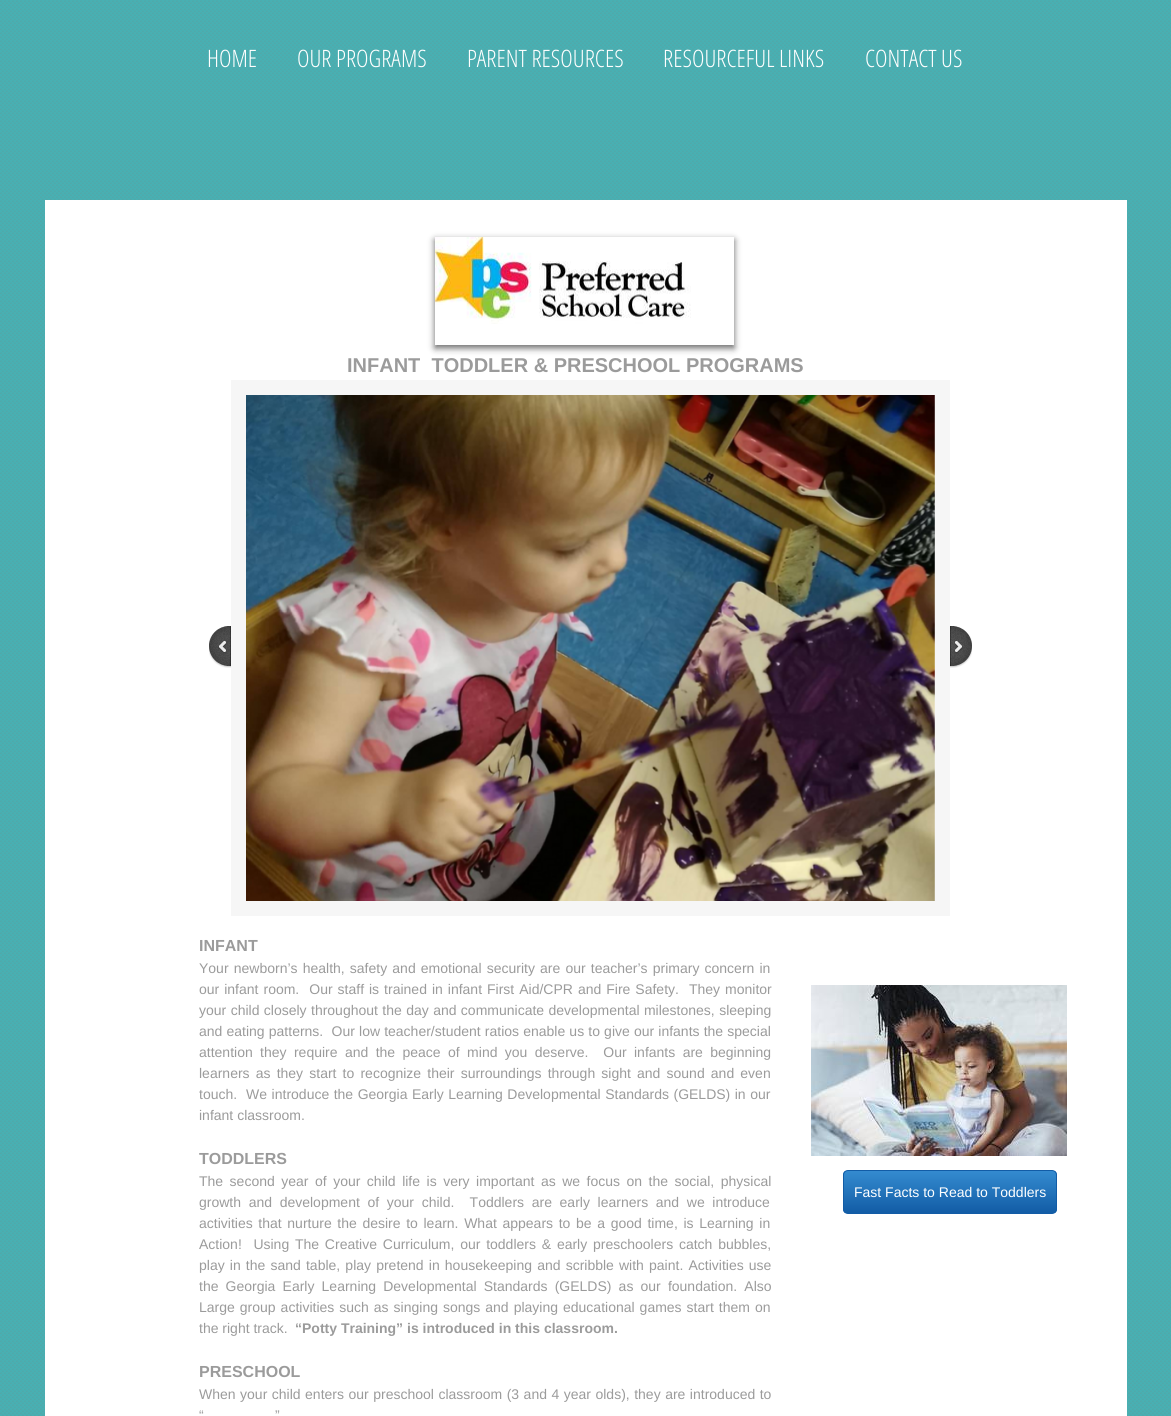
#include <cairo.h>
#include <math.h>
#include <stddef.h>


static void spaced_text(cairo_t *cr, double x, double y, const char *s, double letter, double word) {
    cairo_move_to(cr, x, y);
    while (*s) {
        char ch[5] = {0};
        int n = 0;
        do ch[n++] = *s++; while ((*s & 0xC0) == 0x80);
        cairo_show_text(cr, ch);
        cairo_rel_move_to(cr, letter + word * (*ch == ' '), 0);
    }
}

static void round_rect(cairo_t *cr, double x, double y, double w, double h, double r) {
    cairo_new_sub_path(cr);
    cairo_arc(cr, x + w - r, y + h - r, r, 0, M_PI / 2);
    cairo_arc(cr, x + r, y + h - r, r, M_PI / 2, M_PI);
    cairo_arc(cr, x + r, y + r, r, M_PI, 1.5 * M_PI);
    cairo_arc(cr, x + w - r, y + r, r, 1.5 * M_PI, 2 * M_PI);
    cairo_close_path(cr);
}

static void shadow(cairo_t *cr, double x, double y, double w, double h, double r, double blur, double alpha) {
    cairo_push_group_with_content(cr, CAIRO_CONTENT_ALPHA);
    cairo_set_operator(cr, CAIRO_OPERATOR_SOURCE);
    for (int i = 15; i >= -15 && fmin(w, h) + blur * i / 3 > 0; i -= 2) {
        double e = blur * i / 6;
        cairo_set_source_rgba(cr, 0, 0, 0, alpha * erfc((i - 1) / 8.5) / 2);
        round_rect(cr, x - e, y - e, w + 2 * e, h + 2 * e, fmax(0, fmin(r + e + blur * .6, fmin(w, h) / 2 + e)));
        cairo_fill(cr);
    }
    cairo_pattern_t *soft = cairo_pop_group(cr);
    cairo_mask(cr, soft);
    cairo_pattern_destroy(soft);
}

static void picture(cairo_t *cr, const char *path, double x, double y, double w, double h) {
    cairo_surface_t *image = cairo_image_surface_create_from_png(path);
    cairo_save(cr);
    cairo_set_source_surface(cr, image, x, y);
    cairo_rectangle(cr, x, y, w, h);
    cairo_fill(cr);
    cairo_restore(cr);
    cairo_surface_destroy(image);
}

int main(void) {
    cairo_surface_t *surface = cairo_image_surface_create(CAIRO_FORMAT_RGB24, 1171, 1416);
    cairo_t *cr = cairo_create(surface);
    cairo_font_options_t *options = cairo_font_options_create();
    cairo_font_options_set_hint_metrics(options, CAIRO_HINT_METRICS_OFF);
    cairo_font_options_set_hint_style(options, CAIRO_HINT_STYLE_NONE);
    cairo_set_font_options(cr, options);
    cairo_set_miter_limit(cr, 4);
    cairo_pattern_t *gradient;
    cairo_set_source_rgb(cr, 1, 1, 1);
    cairo_paint(cr);
    picture(cr, "img1.png", 0, 0, 1171, 1416);
    cairo_set_source_rgb(cr, 1, 1, 1);
    cairo_rectangle(cr, 45, 200, 1082, 1216);
    cairo_fill(cr);
    cairo_select_font_face(cr, "Open Sans Condensed Light", CAIRO_FONT_SLANT_NORMAL, CAIRO_FONT_WEIGHT_NORMAL);
    cairo_set_font_size(cr, 24);
    cairo_move_to(cr, 207, 67);
    cairo_show_text(cr, "HOME");
    cairo_move_to(cr, 297, 67);
    cairo_show_text(cr, "OUR PROGRAMS");
    cairo_move_to(cr, 467, 67);
    cairo_show_text(cr, "PARENT RESOURCES");
    cairo_move_to(cr, 663, 67);
    cairo_show_text(cr, "RESOURCEFUL LINKS");
    cairo_move_to(cr, 865, 67);
    cairo_show_text(cr, "CONTACT US");
    cairo_save(cr);
    cairo_set_fill_rule(cr, CAIRO_FILL_RULE_EVEN_ODD);
    cairo_new_path(cr);
    cairo_move_to(cr, 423, 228);
    cairo_line_to(cr, 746, 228);
    cairo_line_to(cr, 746, 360);
    cairo_line_to(cr, 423, 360);
    cairo_close_path(cr);
    cairo_move_to(cr, 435, 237);
    cairo_line_to(cr, 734, 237);
    cairo_line_to(cr, 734, 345);
    cairo_line_to(cr, 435, 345);
    cairo_close_path(cr);
    cairo_clip(cr);
    cairo_set_source_rgb(cr, 0.196, 0.196, 0.196);
    shadow(cr, 435, 240, 299, 108, 0, 3.5, 0.75);
    cairo_restore(cr);
    picture(cr, "img2.png", 435, 237, 256, 87);
    cairo_select_font_face(cr, "Liberation Sans", CAIRO_FONT_SLANT_NORMAL, CAIRO_FONT_WEIGHT_BOLD);
    cairo_set_font_size(cr, 20);
    cairo_set_source_rgb(cr, 0.608, 0.608, 0.608);
    cairo_move_to(cr, 347, 372);
    cairo_show_text(cr, "INFANT  TODDLER & PRESCHOOL PROGRAMS");
    picture(cr, "img3.png", 209, 626, 22, 42);
    cairo_rectangle(cr, 238.5, 387.5, 704, 521);
    cairo_set_source_rgb(cr, 0.961, 0.961, 0.961);
    cairo_set_line_width(cr, 15);
    cairo_stroke(cr);
    picture(cr, "img4.png", 246, 395, 689, 506);
    picture(cr, "img5.png", 950, 626, 22, 42);
    cairo_set_font_size(cr, 16);
    cairo_set_source_rgb(cr, 0.608, 0.608, 0.608);
    cairo_move_to(cr, 199, 951);
    cairo_show_text(cr, "INFANT");
    cairo_select_font_face(cr, "Liberation Sans", CAIRO_FONT_SLANT_NORMAL, CAIRO_FONT_WEIGHT_NORMAL);
    cairo_set_font_size(cr, 14);
    spaced_text(cr, 199, 973, "Your newborn’s health, safety and emotional security are our teacher’s primary concern in", 0, 1.25);
    spaced_text(cr, 199, 994, "our infant room.  Our staff is trained in infant First Aid/CPR and Fire Safety.  They monitor", 0, 1.1);
    spaced_text(cr, 199, 1015, "your child closely throughout the day and communicate developmental milestones, sleeping", 0, 0.5);
    spaced_text(cr, 199, 1036, "and eating patterns.  Our low teacher/student ratios enable us to give our infants the special", 0, 0.25);
    spaced_text(cr, 199, 1057, "attention they require and the peace of mind you deserve.  Our infants are beginning", 0, 3.5);
    spaced_text(cr, 199, 1078, "learners as they start to recognize their surroundings through sight and sound and even", 0, 2.25);
    spaced_text(cr, 199, 1099, "touch.  We introduce the Georgia Early Learning Developmental Standards (GELDS) in our", 0, 0.6);
    cairo_move_to(cr, 199, 1120);
    cairo_show_text(cr, "infant classroom.");
    cairo_select_font_face(cr, "Liberation Sans", CAIRO_FONT_SLANT_NORMAL, CAIRO_FONT_WEIGHT_BOLD);
    cairo_set_font_size(cr, 16);
    cairo_move_to(cr, 199, 1164);
    cairo_show_text(cr, "TODDLERS");
    cairo_select_font_face(cr, "Liberation Sans", CAIRO_FONT_SLANT_NORMAL, CAIRO_FONT_WEIGHT_NORMAL);
    cairo_set_font_size(cr, 14);
    spaced_text(cr, 199, 1186, "The second year of your child life is very important as we focus on the social, physical", 0, 2.6);
    spaced_text(cr, 199, 1207, "growth and development of your child.  Toddlers are early learners and we introduce", 0, 3.75);
    spaced_text(cr, 199, 1228, "activities that nurture the desire to learn. What appears to be a good time, is Learning in", 0, 1.75);
    spaced_text(cr, 199, 1249, "Action!  Using The Creative Curriculum, our toddlers & early preschoolers catch bubbles,", 0, 1.9);
    spaced_text(cr, 199, 1270, "play in the sand table, play pretend in housekeeping and scribble with paint. Activities use", 0, 1.25);
    spaced_text(cr, 199, 1291, "the Georgia Early Learning Developmental Standards (GELDS) as our foundation. Also", 0, 3.25);
    spaced_text(cr, 199, 1312, "Large group activities such as singing songs and playing educational games start them on", 0, 1.1);
    cairo_move_to(cr, 199, 1333);
    cairo_show_text(cr, "the right track.");
    cairo_select_font_face(cr, "Liberation Sans", CAIRO_FONT_SLANT_NORMAL, CAIRO_FONT_WEIGHT_BOLD);
    cairo_move_to(cr, 295, 1333);
    cairo_show_text(cr, "“Potty Training” is introduced in this classroom.");
    cairo_set_font_size(cr, 16);
    cairo_move_to(cr, 199, 1377);
    cairo_show_text(cr, "PRESCHOOL");
    cairo_select_font_face(cr, "Liberation Sans", CAIRO_FONT_SLANT_NORMAL, CAIRO_FONT_WEIGHT_NORMAL);
    cairo_set_font_size(cr, 14);
    spaced_text(cr, 199, 1399, "When your child enters our preschool classroom (3 and 4 year olds), they are introduced to", 0, 0.6);
    spaced_text(cr, 199, 1420, "“", 0, 1);
    spaced_text(cr, 275, 1420, "”", 0, 1);
    picture(cr, "img6.png", 811, 985, 256, 171);
    cairo_save(cr);
    round_rect(cr, 843, 1170, 214, 44, 5);
    cairo_clip(cr);
    gradient = cairo_pattern_create_linear(950, 1171, 950, 1213);
    cairo_pattern_add_color_stop_rgba(gradient, 0, 0.204, 0.545, 0.812, 1);
    cairo_pattern_add_color_stop_rgba(gradient, 1, 0.071, 0.361, 0.651, 1);
    cairo_set_source(cr, gradient);
    cairo_pattern_destroy(gradient);
    cairo_rectangle(cr, 843, 1171, 214, 42);
    cairo_fill(cr);
    cairo_restore(cr);
    round_rect(cr, 843.5, 1170.5, 213, 43, 4.5);
    cairo_set_source_rgb(cr, 0.071, 0.361, 0.651);
    cairo_set_line_width(cr, 1);
    cairo_stroke(cr);
    cairo_set_source_rgb(cr, 1, 1, 1);
    cairo_move_to(cr, 854, 1197);
    cairo_show_text(cr, "Fast Facts to Read to Toddlers");
    cairo_surface_write_to_png(surface, "page.png");
    cairo_font_options_destroy(options);
    cairo_destroy(cr);
    cairo_surface_destroy(surface);
    return 0;
}
